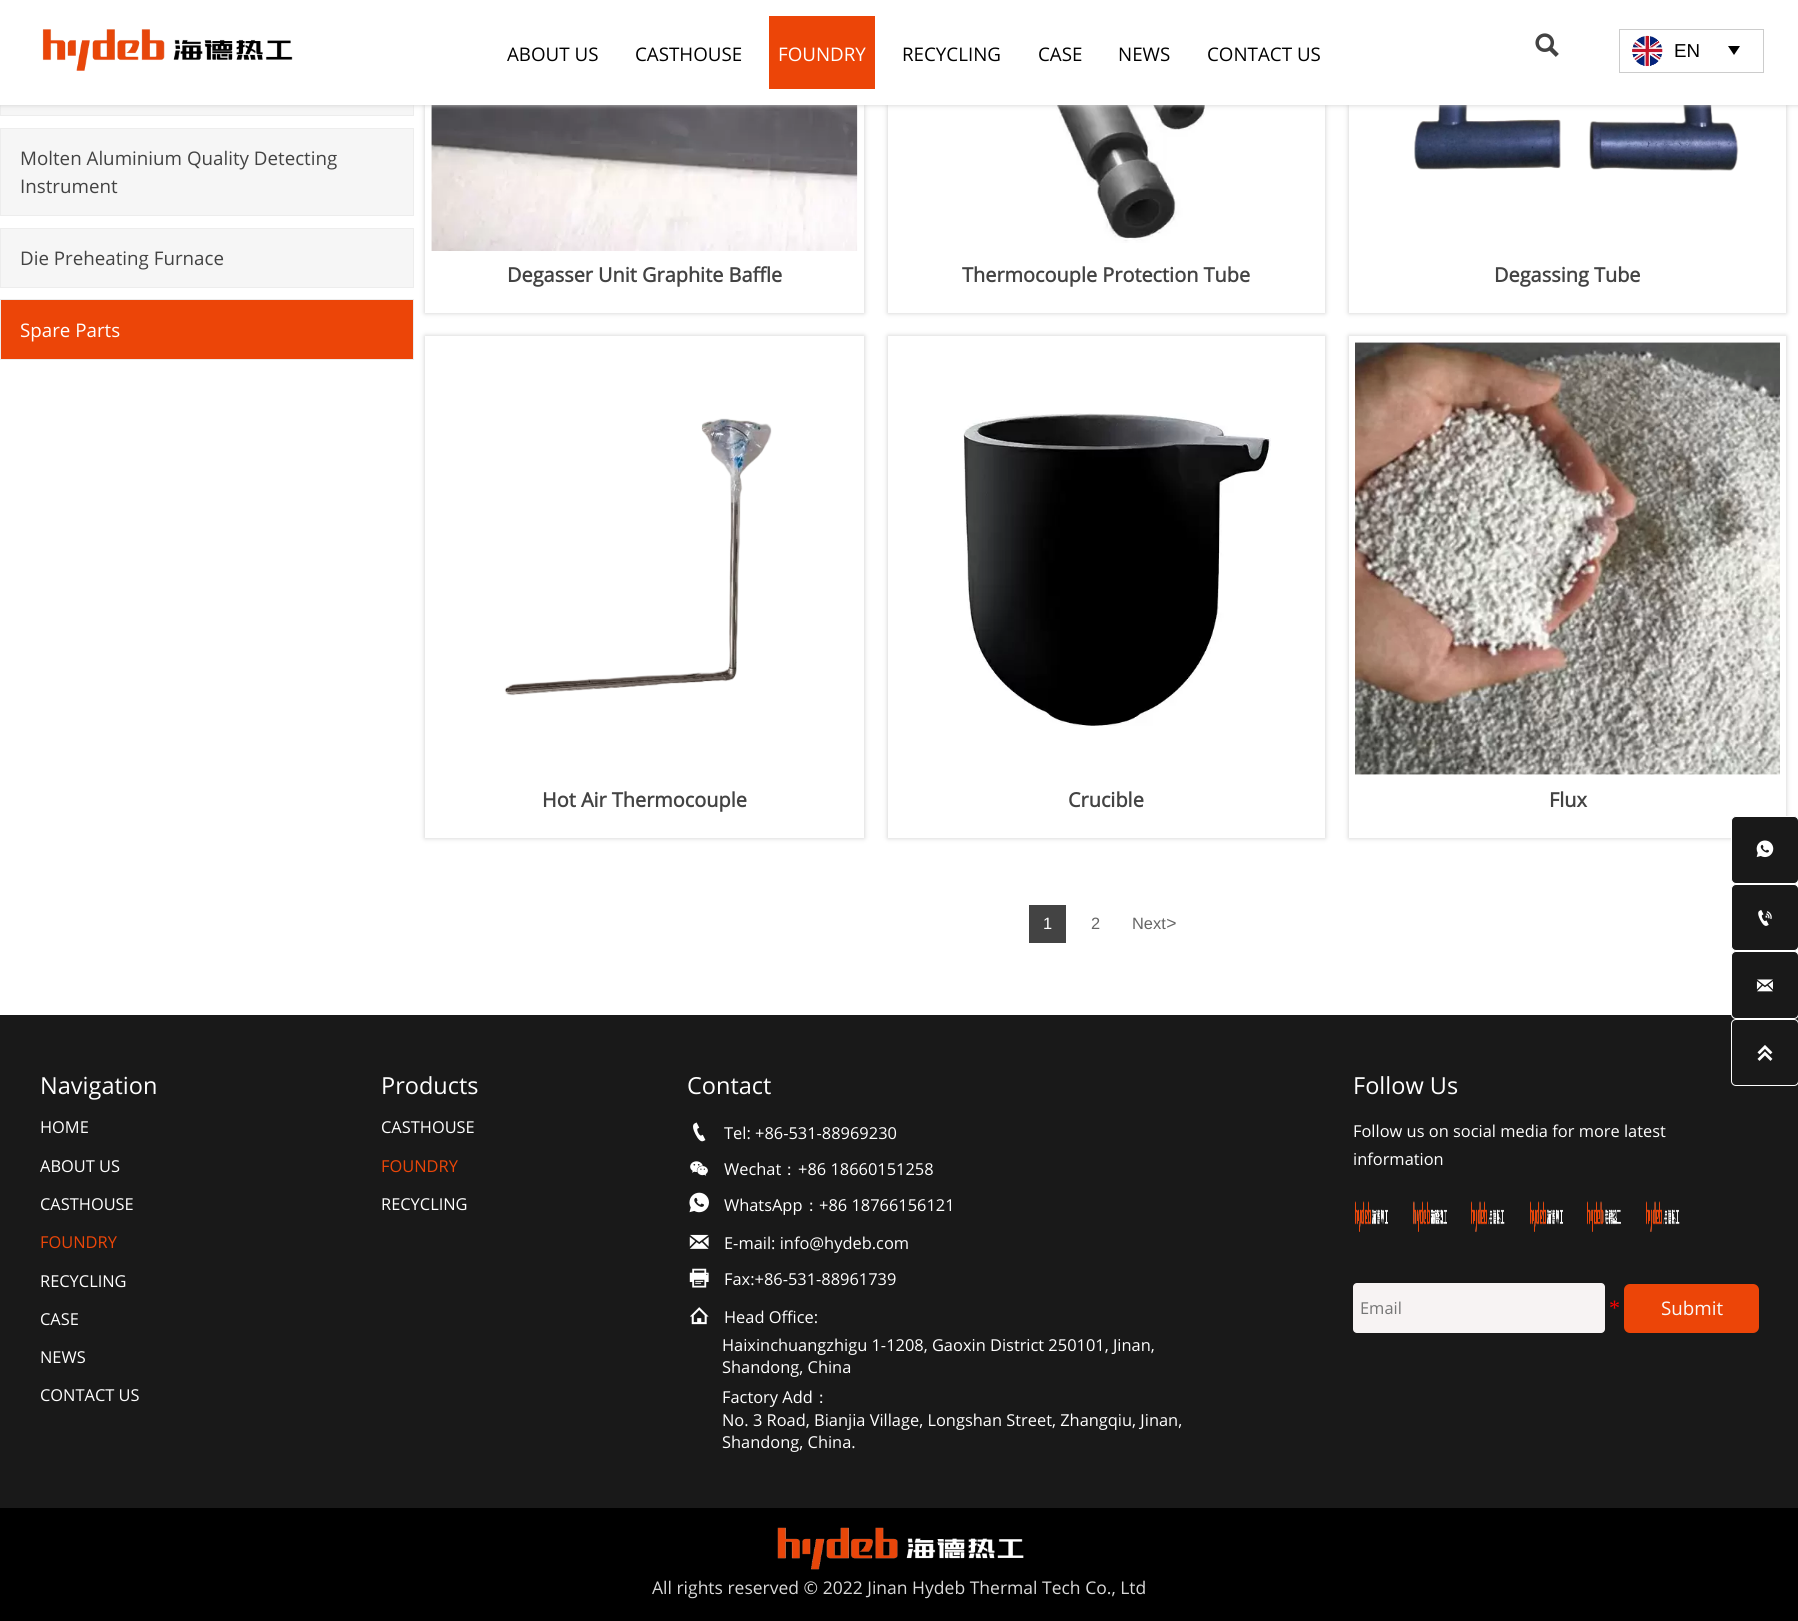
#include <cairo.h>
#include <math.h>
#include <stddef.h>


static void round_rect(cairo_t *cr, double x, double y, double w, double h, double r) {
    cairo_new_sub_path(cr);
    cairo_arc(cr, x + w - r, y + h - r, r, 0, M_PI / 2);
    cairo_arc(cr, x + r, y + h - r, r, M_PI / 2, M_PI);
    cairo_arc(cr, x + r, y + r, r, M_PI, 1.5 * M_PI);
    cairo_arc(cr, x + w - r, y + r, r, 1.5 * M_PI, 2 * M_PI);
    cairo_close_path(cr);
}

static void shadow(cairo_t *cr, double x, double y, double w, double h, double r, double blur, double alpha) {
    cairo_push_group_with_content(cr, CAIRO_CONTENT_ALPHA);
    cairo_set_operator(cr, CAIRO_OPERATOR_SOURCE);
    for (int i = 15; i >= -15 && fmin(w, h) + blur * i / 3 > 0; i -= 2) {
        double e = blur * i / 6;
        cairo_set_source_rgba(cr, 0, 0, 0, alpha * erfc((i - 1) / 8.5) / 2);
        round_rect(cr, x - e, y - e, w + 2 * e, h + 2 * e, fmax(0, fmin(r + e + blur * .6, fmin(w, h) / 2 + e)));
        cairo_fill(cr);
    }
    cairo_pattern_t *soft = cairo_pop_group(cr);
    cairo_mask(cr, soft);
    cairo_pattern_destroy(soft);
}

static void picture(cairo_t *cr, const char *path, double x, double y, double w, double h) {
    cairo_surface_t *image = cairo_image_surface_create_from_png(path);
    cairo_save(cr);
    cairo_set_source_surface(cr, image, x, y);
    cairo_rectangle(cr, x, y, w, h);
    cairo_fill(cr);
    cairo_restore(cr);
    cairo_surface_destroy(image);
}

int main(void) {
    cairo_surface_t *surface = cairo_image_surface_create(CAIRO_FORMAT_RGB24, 1798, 1621);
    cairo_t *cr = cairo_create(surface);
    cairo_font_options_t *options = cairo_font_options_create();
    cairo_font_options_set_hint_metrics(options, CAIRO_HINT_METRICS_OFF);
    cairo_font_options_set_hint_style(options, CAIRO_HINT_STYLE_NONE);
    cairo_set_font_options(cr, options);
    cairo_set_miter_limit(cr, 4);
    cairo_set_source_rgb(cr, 1, 1, 1);
    cairo_paint(cr);
    cairo_set_source_rgb(cr, 0.961, 0.961, 0.961);
    cairo_rectangle(cr, 1, 105, 412, 10);
    cairo_fill(cr);
    cairo_rectangle(cr, 0.5, 28.5, 413, 87);
    cairo_set_source_rgb(cr, 0.929, 0.929, 0.929);
    cairo_set_line_width(cr, 1);
    cairo_stroke(cr);
    cairo_set_source_rgb(cr, 0.8, 0.8, 0.8);
    shadow(cr, 425, -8, 439, 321, 0, 2.5, 1);
    cairo_set_source_rgb(cr, 1, 1, 1);
    cairo_rectangle(cr, 425, 105, 439, 208);
    cairo_fill(cr);
    picture(cr, "img4.png", 431, 105, 427, 146);
    cairo_set_source_rgb(cr, 0.8, 0.8, 0.8);
    shadow(cr, 888, -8, 437, 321, 0, 2.5, 1);
    cairo_set_source_rgb(cr, 1, 1, 1);
    cairo_rectangle(cr, 888, 105, 437, 208);
    cairo_fill(cr);
    picture(cr, "img5.png", 1008, 105, 211, 138);
    cairo_set_source_rgb(cr, 0.8, 0.8, 0.8);
    shadow(cr, 1349, -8, 437, 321, 0, 2.5, 1);
    cairo_set_source_rgb(cr, 1, 1, 1);
    cairo_rectangle(cr, 1349, 105, 437, 208);
    cairo_fill(cr);
    picture(cr, "img6.png", 1414, 105, 325, 66);
    cairo_set_source_rgb(cr, 0.8, 0.8, 0.8);
    shadow(cr, 0, 0, 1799, 105, 0, 2.5, 1);
    cairo_set_source_rgb(cr, 1, 1, 1);
    cairo_rectangle(cr, 0, 0, 1798, 105);
    cairo_fill(cr);
    picture(cr, "img1.png", 42, 29, 251, 42);
    cairo_select_font_face(cr, "Open Sans", CAIRO_FONT_SLANT_NORMAL, CAIRO_FONT_WEIGHT_NORMAL);
    cairo_set_font_size(cr, 18.75);
    cairo_set_source_rgb(cr, 0, 0, 0);
    cairo_move_to(cr, 507, 61);
    cairo_show_text(cr, "ABOUT US");
    cairo_move_to(cr, 635, 61);
    cairo_show_text(cr, "CASTHOUSE");
    cairo_set_source_rgb(cr, 0.922, 0.271, 0.035);
    cairo_rectangle(cr, 769, 16, 106, 73);
    cairo_fill(cr);
    cairo_set_source_rgb(cr, 1, 1, 1);
    cairo_move_to(cr, 778, 61);
    cairo_show_text(cr, "FOUNDRY");
    cairo_set_source_rgb(cr, 0, 0, 0);
    cairo_move_to(cr, 902, 61);
    cairo_show_text(cr, "RECYCLING");
    cairo_move_to(cr, 1038, 61);
    cairo_show_text(cr, "CASE");
    cairo_move_to(cr, 1118, 61);
    cairo_show_text(cr, "NEWS");
    cairo_move_to(cr, 1207, 61);
    cairo_show_text(cr, "CONTACT US");
    picture(cr, "img2.png", 1535, 33, 24, 24);
    cairo_rectangle(cr, 1619.5, 29.5, 144, 43);
    cairo_set_source_rgb(cr, 0.8, 0.8, 0.8);
    cairo_stroke(cr);
    picture(cr, "img3.png", 1632, 35, 31, 32);
    cairo_select_font_face(cr, "Liberation Sans", CAIRO_FONT_SLANT_NORMAL, CAIRO_FONT_WEIGHT_NORMAL);
    cairo_set_source_rgb(cr, 0, 0, 0);
    cairo_move_to(cr, 1674, 57);
    cairo_show_text(cr, "EN");
    cairo_new_path(cr);
    cairo_move_to(cr, 1734, 55);
    cairo_line_to(cr, 1728, 46);
    cairo_line_to(cr, 1740, 46);
    cairo_close_path(cr);
    cairo_fill(cr);
    cairo_set_source_rgb(cr, 0.961, 0.961, 0.961);
    cairo_rectangle(cr, 0.5, 128.5, 413, 87);
    cairo_fill_preserve(cr);
    cairo_set_source_rgb(cr, 0.929, 0.929, 0.929);
    cairo_stroke(cr);
    cairo_select_font_face(cr, "Open Sans", CAIRO_FONT_SLANT_NORMAL, CAIRO_FONT_WEIGHT_NORMAL);
    cairo_set_source_rgb(cr, 0.263, 0.263, 0.263);
    cairo_move_to(cr, 20, 165);
    cairo_show_text(cr, "Molten Aluminium Quality Detecting");
    cairo_move_to(cr, 20, 193);
    cairo_show_text(cr, "Instrument");
    cairo_set_source_rgb(cr, 0.961, 0.961, 0.961);
    cairo_rectangle(cr, 0.5, 228.5, 413, 59);
    cairo_fill_preserve(cr);
    cairo_set_source_rgb(cr, 0.929, 0.929, 0.929);
    cairo_stroke(cr);
    cairo_set_source_rgb(cr, 0.263, 0.263, 0.263);
    cairo_move_to(cr, 20, 265);
    cairo_show_text(cr, "Die Preheating Furnace");
    cairo_set_source_rgb(cr, 0.922, 0.271, 0.035);
    cairo_rectangle(cr, 0.5, 299.5, 413, 60);
    cairo_fill_preserve(cr);
    cairo_set_source_rgb(cr, 0.929, 0.929, 0.929);
    cairo_stroke(cr);
    cairo_set_source_rgb(cr, 1, 1, 1);
    cairo_move_to(cr, 20, 337);
    cairo_show_text(cr, "Spare Parts");
    cairo_select_font_face(cr, "Open Sans", CAIRO_FONT_SLANT_NORMAL, CAIRO_FONT_WEIGHT_BOLD);
    cairo_set_font_size(cr, 19.9);
    cairo_set_source_rgb(cr, 0.263, 0.263, 0.263);
    cairo_move_to(cr, 507, 282);
    cairo_show_text(cr, "Degasser Unit Graphite Baffle");
    cairo_move_to(cr, 962, 282);
    cairo_show_text(cr, "Thermocouple Protection Tube");
    cairo_move_to(cr, 1494, 282);
    cairo_show_text(cr, "Degassing Tube");
    cairo_set_source_rgb(cr, 0.8, 0.8, 0.8);
    shadow(cr, 425, 336, 439, 502, 0, 2.5, 1);
    cairo_set_source_rgb(cr, 1, 1, 1);
    cairo_rectangle(cr, 425, 336, 439, 502);
    cairo_fill(cr);
    picture(cr, "img7.png", 504, 418, 268, 278);
    cairo_set_source_rgb(cr, 0.263, 0.263, 0.263);
    cairo_move_to(cr, 542, 807);
    cairo_show_text(cr, "Hot Air Thermocouple");
    cairo_set_source_rgb(cr, 0.8, 0.8, 0.8);
    shadow(cr, 888, 336, 437, 502, 0, 2.5, 1);
    cairo_set_source_rgb(cr, 1, 1, 1);
    cairo_rectangle(cr, 888, 336, 437, 502);
    cairo_fill(cr);
    picture(cr, "img8.png", 963, 413, 308, 313);
    cairo_set_source_rgb(cr, 0.263, 0.263, 0.263);
    cairo_move_to(cr, 1068, 807);
    cairo_show_text(cr, "Crucible");
    cairo_set_source_rgb(cr, 0.8, 0.8, 0.8);
    shadow(cr, 1349, 336, 437, 502, 0, 2.5, 1);
    cairo_set_source_rgb(cr, 1, 1, 1);
    cairo_rectangle(cr, 1349, 336, 437, 502);
    cairo_fill(cr);
    picture(cr, "img9.png", 1355, 342, 425, 433);
    cairo_set_source_rgb(cr, 0.263, 0.263, 0.263);
    cairo_move_to(cr, 1549, 807);
    cairo_show_text(cr, "Flux");
    cairo_rectangle(cr, 1029, 905, 37, 38);
    cairo_fill(cr);
    cairo_select_font_face(cr, "Liberation Sans", CAIRO_FONT_SLANT_NORMAL, CAIRO_FONT_WEIGHT_NORMAL);
    cairo_set_font_size(cr, 16.4);
    cairo_set_source_rgb(cr, 1, 1, 1);
    cairo_move_to(cr, 1043, 929);
    cairo_show_text(cr, "1");
    cairo_set_source_rgb(cr, 0.4, 0.4, 0.4);
    cairo_move_to(cr, 1091, 929);
    cairo_show_text(cr, "2");
    cairo_move_to(cr, 1132, 929);
    cairo_show_text(cr, "Next");
    cairo_select_font_face(cr, "Liberation Sans", CAIRO_FONT_SLANT_ITALIC, CAIRO_FONT_WEIGHT_NORMAL);
    cairo_set_font_size(cr, 17.5);
    cairo_move_to(cr, 1166, 929);
    cairo_show_text(cr, ">");
    cairo_set_source_rgb(cr, 0.098, 0.098, 0.098);
    round_rect(cr, 1731.5, 816.5, 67, 67, 4.5);
    cairo_fill_preserve(cr);
    cairo_set_source_rgb(cr, 1, 1, 1);
    cairo_stroke(cr);
    picture(cr, "img10.png", 1756, 840, 18, 18);
    cairo_set_source_rgb(cr, 0.098, 0.098, 0.098);
    round_rect(cr, 1731.5, 884.5, 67, 66, 4.5);
    cairo_fill_preserve(cr);
    cairo_set_source_rgb(cr, 1, 1, 1);
    cairo_stroke(cr);
    picture(cr, "img11.png", 1758, 910, 14, 16);
    cairo_set_source_rgb(cr, 0.098, 0.098, 0.098);
    cairo_rectangle(cr, 0, 1015, 1798, 493);
    cairo_fill(cr);
    round_rect(cr, 1731.5, 951.5, 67, 67, 4.5);
    cairo_fill_preserve(cr);
    cairo_set_source_rgb(cr, 1, 1, 1);
    cairo_stroke(cr);
    picture(cr, "img12.png", 1756, 979, 17, 13);
    round_rect(cr, 1731.5, 1019.5, 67, 66, 4.5);
    cairo_stroke(cr);
    picture(cr, "img13.png", 1757, 1045, 16, 16);
    cairo_select_font_face(cr, "Open Sans", CAIRO_FONT_SLANT_NORMAL, CAIRO_FONT_WEIGHT_NORMAL);
    cairo_set_font_size(cr, 23.5);
    cairo_move_to(cr, 40, 1094);
    cairo_show_text(cr, "Navigation");
    cairo_set_font_size(cr, 16.4);
    cairo_move_to(cr, 40, 1133);
    cairo_show_text(cr, "HOME");
    cairo_move_to(cr, 40, 1172);
    cairo_show_text(cr, "ABOUT US");
    cairo_move_to(cr, 40, 1210);
    cairo_show_text(cr, "CASTHOUSE");
    cairo_set_source_rgb(cr, 0.918, 0.275, 0.035);
    cairo_move_to(cr, 40, 1248);
    cairo_show_text(cr, "FOUNDRY");
    cairo_set_source_rgb(cr, 1, 1, 1);
    cairo_move_to(cr, 40, 1287);
    cairo_show_text(cr, "RECYCLING");
    cairo_move_to(cr, 40, 1325);
    cairo_show_text(cr, "CASE");
    cairo_move_to(cr, 40, 1363);
    cairo_show_text(cr, "NEWS");
    cairo_move_to(cr, 40, 1401);
    cairo_show_text(cr, "CONTACT US");
    cairo_set_font_size(cr, 23.5);
    cairo_move_to(cr, 381, 1094);
    cairo_show_text(cr, "Products");
    cairo_set_font_size(cr, 16.4);
    cairo_move_to(cr, 381, 1133);
    cairo_show_text(cr, "CASTHOUSE");
    cairo_set_source_rgb(cr, 0.918, 0.275, 0.035);
    cairo_move_to(cr, 381, 1172);
    cairo_show_text(cr, "FOUNDRY");
    cairo_set_source_rgb(cr, 1, 1, 1);
    cairo_move_to(cr, 381, 1210);
    cairo_show_text(cr, "RECYCLING");
    cairo_set_font_size(cr, 23.5);
    cairo_move_to(cr, 687, 1094);
    cairo_show_text(cr, "Contact");
    picture(cr, "img14.png", 693, 1122, 13, 20);
    cairo_set_font_size(cr, 16.4);
    cairo_move_to(cr, 724, 1139);
    cairo_show_text(cr, "Tel: +86-531-88969230");
    picture(cr, "img15.png", 690, 1161, 18, 15);
    cairo_move_to(cr, 724, 1175);
    cairo_show_text(cr, "Wechat");
    cairo_select_font_face(cr, "WenQuanYi Zen Hei Medium", CAIRO_FONT_SLANT_NORMAL, CAIRO_FONT_WEIGHT_NORMAL);
    cairo_move_to(cr, 781, 1175);
    cairo_show_text(cr, "：");
    cairo_select_font_face(cr, "Open Sans", CAIRO_FONT_SLANT_NORMAL, CAIRO_FONT_WEIGHT_NORMAL);
    cairo_move_to(cr, 798, 1175);
    cairo_show_text(cr, "+86 18660151258");
    picture(cr, "img16.png", 689, 1192, 20, 21);
    cairo_move_to(cr, 724, 1211);
    cairo_show_text(cr, "WhatsApp");
    cairo_select_font_face(cr, "WenQuanYi Zen Hei Medium", CAIRO_FONT_SLANT_NORMAL, CAIRO_FONT_WEIGHT_NORMAL);
    cairo_move_to(cr, 803, 1211);
    cairo_show_text(cr, "：");
    cairo_select_font_face(cr, "Open Sans", CAIRO_FONT_SLANT_NORMAL, CAIRO_FONT_WEIGHT_NORMAL);
    cairo_move_to(cr, 819, 1211);
    cairo_show_text(cr, "+86 18766156121");
    picture(cr, "img17.png", 689, 1234, 20, 15);
    cairo_move_to(cr, 724, 1249);
    cairo_show_text(cr, "E-mail: info@hydeb.com");
    picture(cr, "img18.png", 689, 1268, 20, 20);
    cairo_move_to(cr, 724, 1285);
    cairo_show_text(cr, "Fax:+86-531-88961739");
    picture(cr, "img19.png", 690, 1307, 19, 18);
    cairo_move_to(cr, 724, 1323);
    cairo_show_text(cr, "Head Office:");
    cairo_move_to(cr, 722, 1351);
    cairo_show_text(cr, "Haixinchuangzhigu 1-1208, Gaoxin District 250101, Jinan,");
    cairo_move_to(cr, 722, 1373);
    cairo_show_text(cr, "Shandong, China");
    cairo_move_to(cr, 722, 1403);
    cairo_show_text(cr, "Factory Add");
    cairo_select_font_face(cr, "WenQuanYi Zen Hei Medium", CAIRO_FONT_SLANT_NORMAL, CAIRO_FONT_WEIGHT_NORMAL);
    cairo_move_to(cr, 813, 1403);
    cairo_show_text(cr, "：");
    cairo_select_font_face(cr, "Open Sans", CAIRO_FONT_SLANT_NORMAL, CAIRO_FONT_WEIGHT_NORMAL);
    cairo_move_to(cr, 722, 1426);
    cairo_show_text(cr, "No. 3 Road, Bianjia Village, Longshan Street, Zhangqiu, Jinan,");
    cairo_move_to(cr, 722, 1448);
    cairo_show_text(cr, "Shandong, China.");
    cairo_set_font_size(cr, 23.5);
    cairo_move_to(cr, 1353, 1094);
    cairo_show_text(cr, "Follow Us");
    cairo_set_font_size(cr, 16.4);
    cairo_move_to(cr, 1353, 1137);
    cairo_show_text(cr, "Follow us on social media for more latest");
    cairo_move_to(cr, 1353, 1165);
    cairo_show_text(cr, "information");
    picture(cr, "img20.png", 1355, 1201, 33, 31);
    picture(cr, "img21.png", 1413, 1201, 34, 31);
    picture(cr, "img22.png", 1471, 1201, 34, 31);
    picture(cr, "img23.png", 1530, 1201, 33, 31);
    picture(cr, "img24.png", 1587, 1201, 34, 31);
    picture(cr, "img25.png", 1646, 1201, 34, 31);
    cairo_set_source_rgb(cr, 0.965, 0.953, 0.953);
    round_rect(cr, 1353, 1283, 252, 50, 4);
    cairo_fill(cr);
    cairo_set_source_rgb(cr, 0.459, 0.459, 0.459);
    cairo_move_to(cr, 1360, 1314);
    cairo_show_text(cr, "Email");
    cairo_select_font_face(cr, "Liberation Serif", CAIRO_FONT_SLANT_NORMAL, CAIRO_FONT_WEIGHT_NORMAL);
    cairo_set_font_size(cr, 22);
    cairo_set_source_rgb(cr, 1, 0, 0);
    cairo_move_to(cr, 1609, 1315);
    cairo_show_text(cr, "*");
    cairo_set_source_rgb(cr, 0.922, 0.271, 0.035);
    round_rect(cr, 1624, 1284, 135, 49, 6);
    cairo_fill(cr);
    cairo_select_font_face(cr, "Open Sans", CAIRO_FONT_SLANT_NORMAL, CAIRO_FONT_WEIGHT_NORMAL);
    cairo_set_font_size(cr, 18.75);
    cairo_set_source_rgb(cr, 0.976, 0.976, 0.976);
    cairo_move_to(cr, 1661, 1315);
    cairo_show_text(cr, "Submit");
    cairo_set_source_rgb(cr, 0, 0, 0);
    cairo_rectangle(cr, 0, 1508, 1798, 113);
    cairo_fill(cr);
    picture(cr, "img26.png", 777, 1527, 247, 43);
    cairo_set_font_size(cr, 17.5);
    cairo_set_source_rgb(cr, 0.851, 0.851, 0.851);
    cairo_move_to(cr, 652, 1594);
    cairo_show_text(cr, "All rights reserved © 2022 Jinan Hydeb Thermal Tech Co., Ltd");
    cairo_surface_write_to_png(surface, "page.png");
    cairo_font_options_destroy(options);
    cairo_destroy(cr);
    cairo_surface_destroy(surface);
    return 0;
}
